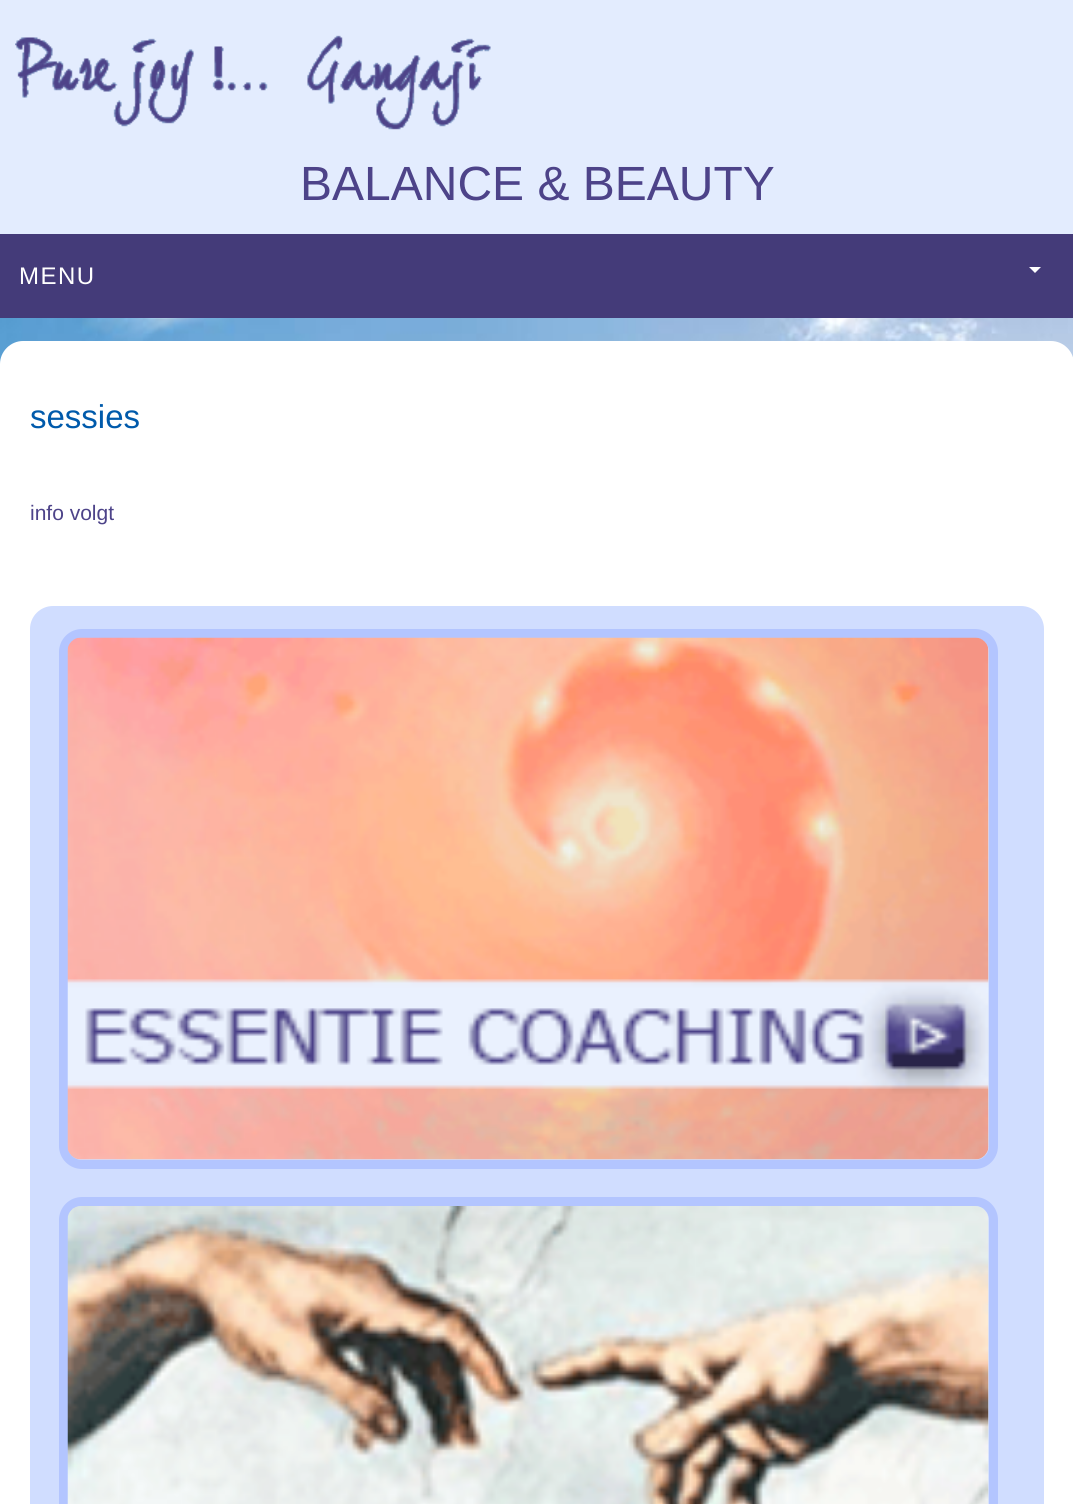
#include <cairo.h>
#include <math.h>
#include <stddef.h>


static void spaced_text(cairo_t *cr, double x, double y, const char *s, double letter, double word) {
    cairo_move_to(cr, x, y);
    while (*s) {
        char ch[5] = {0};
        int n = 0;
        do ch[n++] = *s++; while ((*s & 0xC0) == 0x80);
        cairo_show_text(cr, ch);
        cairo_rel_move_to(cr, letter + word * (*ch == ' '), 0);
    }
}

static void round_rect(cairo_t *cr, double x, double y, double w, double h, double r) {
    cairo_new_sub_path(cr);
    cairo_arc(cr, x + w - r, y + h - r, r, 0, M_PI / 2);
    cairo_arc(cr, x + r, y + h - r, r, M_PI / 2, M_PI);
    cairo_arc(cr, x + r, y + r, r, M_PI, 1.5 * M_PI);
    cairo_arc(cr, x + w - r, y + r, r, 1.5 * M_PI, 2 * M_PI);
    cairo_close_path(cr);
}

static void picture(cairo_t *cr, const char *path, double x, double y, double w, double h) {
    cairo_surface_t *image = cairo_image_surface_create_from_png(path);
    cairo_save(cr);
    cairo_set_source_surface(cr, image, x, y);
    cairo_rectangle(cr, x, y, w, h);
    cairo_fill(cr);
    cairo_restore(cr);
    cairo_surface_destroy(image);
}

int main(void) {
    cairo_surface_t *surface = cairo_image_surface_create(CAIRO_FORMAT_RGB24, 1073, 1504);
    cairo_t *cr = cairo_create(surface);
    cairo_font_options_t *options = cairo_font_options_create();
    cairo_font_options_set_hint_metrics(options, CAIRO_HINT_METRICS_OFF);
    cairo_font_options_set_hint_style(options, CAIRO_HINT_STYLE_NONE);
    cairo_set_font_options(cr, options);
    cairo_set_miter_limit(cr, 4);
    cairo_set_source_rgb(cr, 1, 1, 1);
    cairo_paint(cr);
    picture(cr, "img1.png", 0, 318, 1073, 46);
    cairo_set_source_rgb(cr, 0.89, 0.922, 0.996);
    cairo_rectangle(cr, 0, 0, 1073, 234);
    cairo_fill(cr);
    picture(cr, "img2.png", 15, 35, 476, 95);
    cairo_select_font_face(cr, "Liberation Sans", CAIRO_FONT_SLANT_NORMAL, CAIRO_FONT_WEIGHT_NORMAL);
    cairo_set_font_size(cr, 48);
    cairo_set_source_rgb(cr, 0.302, 0.263, 0.537);
    cairo_move_to(cr, 300, 200);
    cairo_show_text(cr, "BALANCE & BEAUTY");
    cairo_set_source_rgb(cr, 0.267, 0.231, 0.475);
    cairo_rectangle(cr, 0, 234, 1073, 84);
    cairo_fill(cr);
    cairo_set_font_size(cr, 24);
    cairo_set_source_rgb(cr, 1, 1, 1);
    spaced_text(cr, 19, 284, "MENU", 1.5, 0);
    cairo_new_path(cr);
    cairo_move_to(cr, 1029, 267);
    cairo_line_to(cr, 1041, 267);
    cairo_line_to(cr, 1035, 273);
    cairo_close_path(cr);
    cairo_fill(cr);
    cairo_new_path(cr);
    cairo_move_to(cr, 23, 341);
    cairo_line_to(cr, 1051, 341);
    cairo_curve_to(cr, 1063.5, 341, 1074, 351.5, 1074, 364);
    cairo_line_to(cr, 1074, 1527);
    cairo_line_to(cr, 0, 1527);
    cairo_line_to(cr, 0, 364);
    cairo_curve_to(cr, 0, 351.5, 10.5, 341, 23, 341);
    cairo_close_path(cr);
    cairo_fill(cr);
    cairo_set_font_size(cr, 33);
    cairo_set_source_rgb(cr, 0, 0.353, 0.671);
    cairo_move_to(cr, 30, 428);
    cairo_show_text(cr, "sessies");
    cairo_set_font_size(cr, 21);
    cairo_set_source_rgb(cr, 0.302, 0.263, 0.537);
    cairo_move_to(cr, 30, 520);
    cairo_show_text(cr, "info volgt");
    cairo_set_source_rgb(cr, 0.816, 0.867, 1);
    round_rect(cr, 30, 606, 1014, 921, 23);
    cairo_fill(cr);
    round_rect(cr, 63.5, 633.5, 930, 531, 18.5);
    cairo_set_source_rgb(cr, 0.702, 0.773, 1);
    cairo_set_line_width(cr, 9);
    cairo_stroke(cr);
    picture(cr, "img3.png", 67, 637, 922, 523);
    round_rect(cr, 63.5, 1201.5, 930, 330, 18.5);
    cairo_stroke(cr);
    picture(cr, "img4.png", 67, 1206, 922, 298);
    cairo_surface_write_to_png(surface, "page.png");
    cairo_font_options_destroy(options);
    cairo_destroy(cr);
    cairo_surface_destroy(surface);
    return 0;
}
